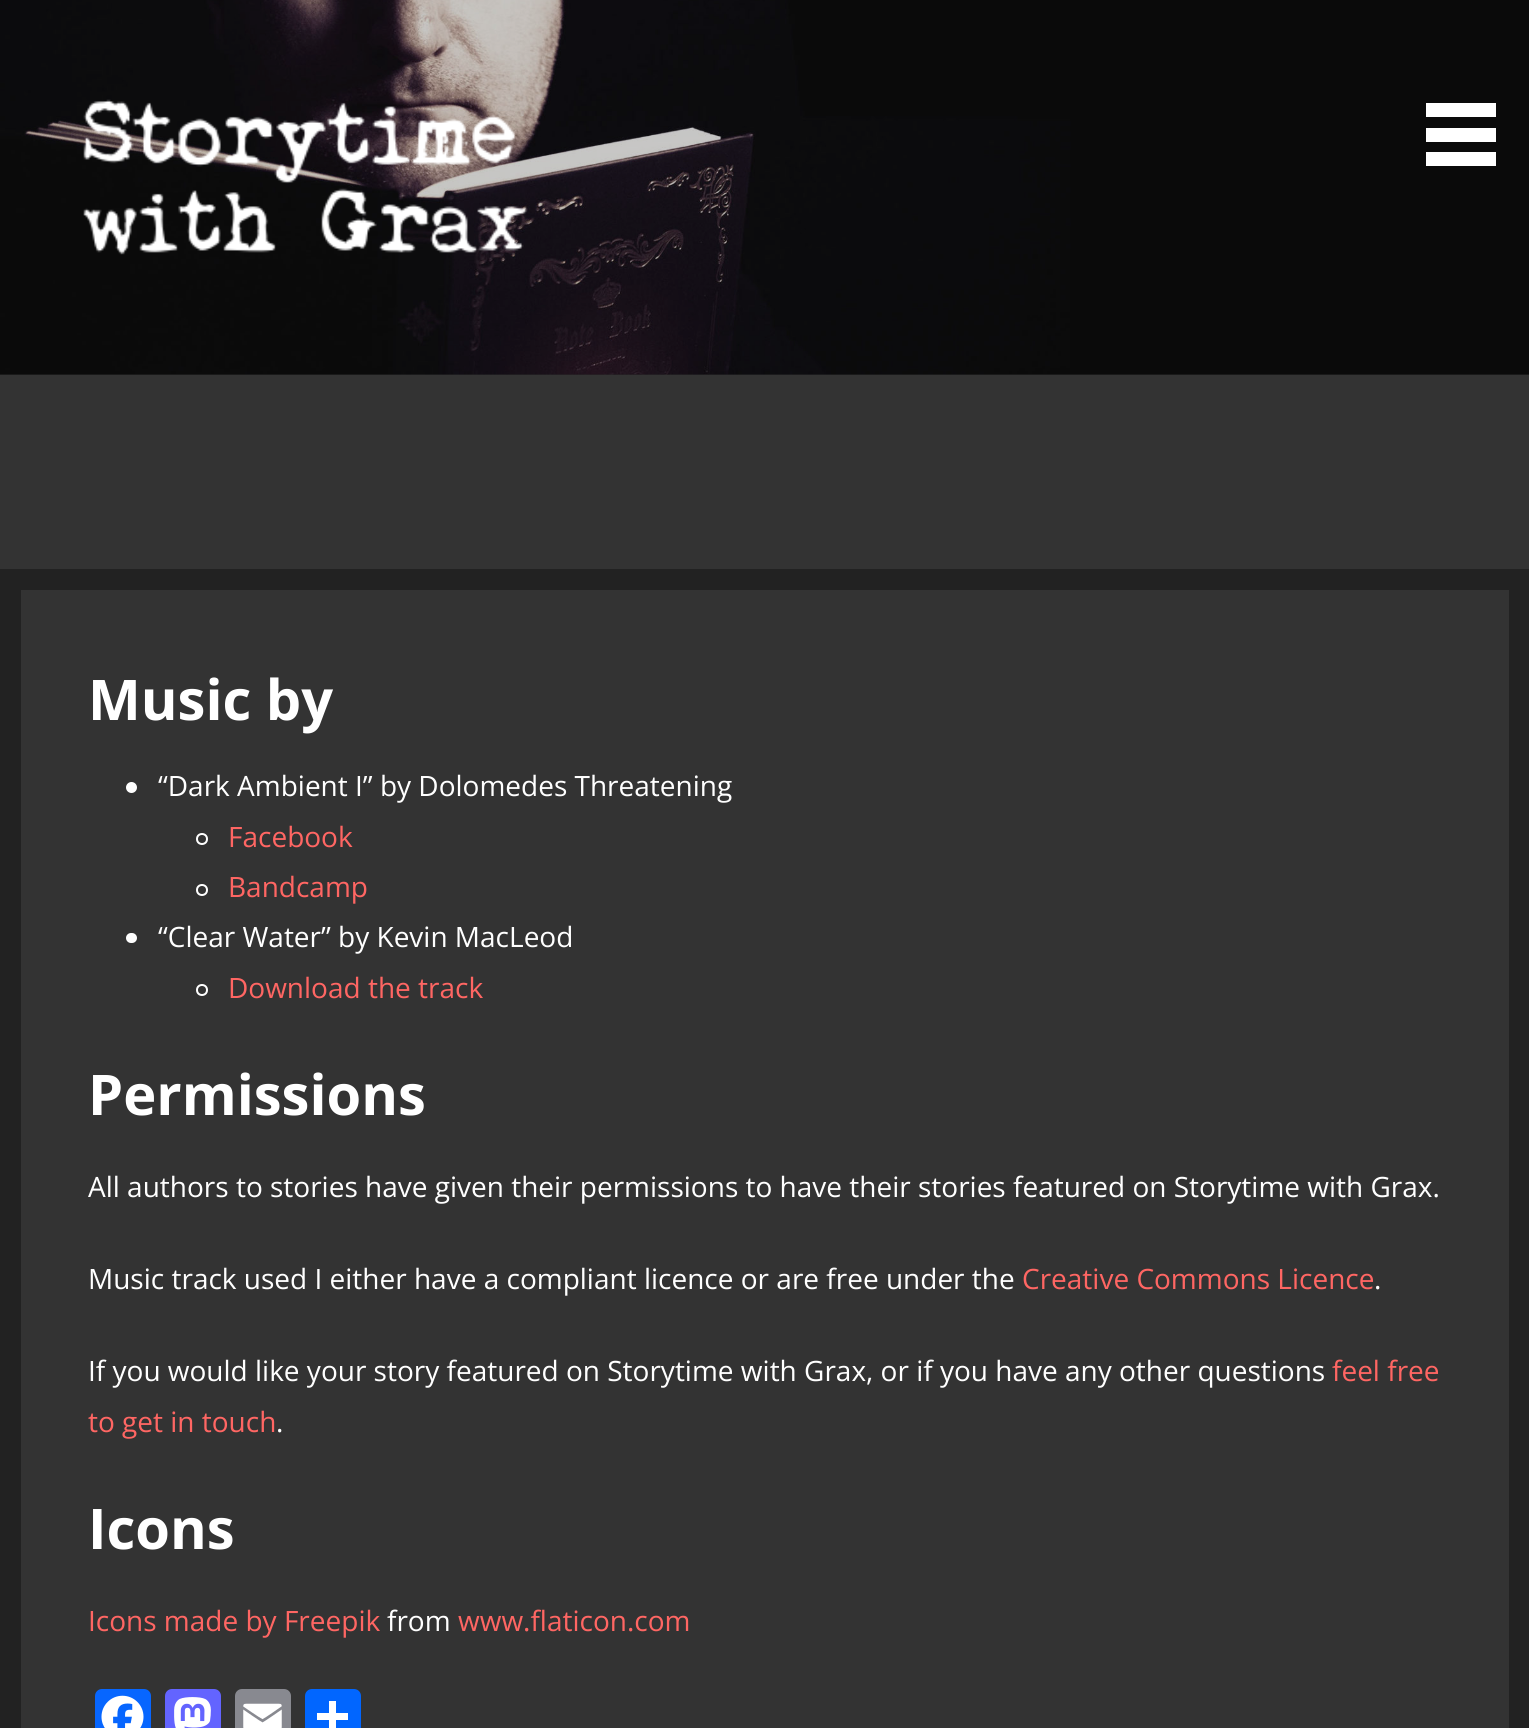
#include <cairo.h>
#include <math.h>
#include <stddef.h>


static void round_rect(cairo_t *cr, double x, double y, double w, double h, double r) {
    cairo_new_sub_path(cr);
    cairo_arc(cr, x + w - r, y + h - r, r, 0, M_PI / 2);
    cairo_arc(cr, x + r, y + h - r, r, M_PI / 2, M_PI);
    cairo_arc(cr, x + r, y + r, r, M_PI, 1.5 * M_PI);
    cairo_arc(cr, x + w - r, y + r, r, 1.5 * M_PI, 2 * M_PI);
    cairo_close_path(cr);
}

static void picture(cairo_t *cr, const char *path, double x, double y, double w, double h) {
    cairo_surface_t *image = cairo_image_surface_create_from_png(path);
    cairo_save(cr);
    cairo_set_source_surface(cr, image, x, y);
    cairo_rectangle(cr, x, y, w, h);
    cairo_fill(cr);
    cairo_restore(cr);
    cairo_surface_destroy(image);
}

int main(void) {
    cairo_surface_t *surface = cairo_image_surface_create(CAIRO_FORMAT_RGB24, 1529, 1728);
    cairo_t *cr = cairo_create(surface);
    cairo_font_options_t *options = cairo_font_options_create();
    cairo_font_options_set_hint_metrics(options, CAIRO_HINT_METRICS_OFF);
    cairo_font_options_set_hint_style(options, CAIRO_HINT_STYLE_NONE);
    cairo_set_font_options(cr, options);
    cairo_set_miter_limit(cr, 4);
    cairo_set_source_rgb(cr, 0.133, 0.133, 0.133);
    cairo_paint(cr);
    cairo_set_source_rgb(cr, 0.157, 0.157, 0.157);
    cairo_rectangle(cr, 0, 374, 1529, 1);
    cairo_fill(cr);
    picture(cr, "img1.png", 0, 0, 1529, 375);
    picture(cr, "img2.png", 83, 99, 445, 156);
    cairo_set_source_rgb(cr, 1, 1, 1);
    cairo_rectangle(cr, 1426, 103, 70, 14);
    cairo_fill(cr);
    cairo_rectangle(cr, 1426, 128, 70, 14);
    cairo_fill(cr);
    cairo_rectangle(cr, 1426, 152, 70, 14);
    cairo_fill(cr);
    cairo_set_source_rgb(cr, 0.2, 0.2, 0.2);
    cairo_rectangle(cr, 0, 375, 1529, 194);
    cairo_fill(cr);
    cairo_rectangle(cr, 21, 590, 1488, 1138);
    cairo_fill(cr);
    cairo_select_font_face(cr, "Open Sans", CAIRO_FONT_SLANT_NORMAL, CAIRO_FONT_WEIGHT_BOLD);
    cairo_set_font_size(cr, 56);
    cairo_set_source_rgb(cr, 1, 1, 1);
    cairo_move_to(cr, 88, 720);
    cairo_show_text(cr, "Music by");
    cairo_new_path(cr);
    cairo_arc(cr, 131.5, 787.5, 5.5, 0, 2 * M_PI);
    cairo_fill(cr);
    cairo_select_font_face(cr, "Open Sans", CAIRO_FONT_SLANT_NORMAL, CAIRO_FONT_WEIGHT_NORMAL);
    cairo_set_font_size(cr, 28);
    cairo_move_to(cr, 158, 796);
    cairo_show_text(cr, "“Dark Ambient I” by Dolomedes Threatening");
    cairo_new_path(cr);
    cairo_arc(cr, 202, 839, 5, 0, 2 * M_PI);
    cairo_stroke(cr);
    cairo_set_source_rgb(cr, 1, 0.4, 0.388);
    cairo_move_to(cr, 228, 847);
    cairo_show_text(cr, "Facebook");
    cairo_new_path(cr);
    cairo_arc(cr, 202, 890, 5, 0, 2 * M_PI);
    cairo_set_source_rgb(cr, 1, 1, 1);
    cairo_stroke(cr);
    cairo_set_source_rgb(cr, 1, 0.4, 0.388);
    cairo_move_to(cr, 228, 897);
    cairo_show_text(cr, "Bandcamp");
    cairo_set_source_rgb(cr, 1, 1, 1);
    round_rect(cr, 126, 933, 11, 10, 5);
    cairo_fill(cr);
    cairo_move_to(cr, 158, 947);
    cairo_show_text(cr, "“Clear Water” by Kevin MacLeod");
    cairo_new_path(cr);
    cairo_arc(cr, 202, 990, 5, 0, 2 * M_PI);
    cairo_stroke(cr);
    cairo_set_source_rgb(cr, 1, 0.4, 0.388);
    cairo_move_to(cr, 228, 998);
    cairo_show_text(cr, "Download the track");
    cairo_select_font_face(cr, "Open Sans", CAIRO_FONT_SLANT_NORMAL, CAIRO_FONT_WEIGHT_BOLD);
    cairo_set_font_size(cr, 56);
    cairo_set_source_rgb(cr, 1, 1, 1);
    cairo_move_to(cr, 88, 1115);
    cairo_show_text(cr, "Permissions");
    cairo_select_font_face(cr, "Open Sans", CAIRO_FONT_SLANT_NORMAL, CAIRO_FONT_WEIGHT_NORMAL);
    cairo_set_font_size(cr, 28);
    cairo_move_to(cr, 88, 1197);
    cairo_show_text(cr, "All authors to stories have given their permissions to have their stories featured on Storytime with Grax.");
    cairo_move_to(cr, 88, 1289);
    cairo_show_text(cr, "Music track used I either have a compliant licence or are free under the");
    cairo_set_source_rgb(cr, 1, 0.4, 0.388);
    cairo_move_to(cr, 1022, 1289);
    cairo_show_text(cr, "Creative Commons Licence");
    cairo_set_source_rgb(cr, 1, 1, 1);
    cairo_move_to(cr, 1374, 1289);
    cairo_show_text(cr, ".");
    cairo_move_to(cr, 88, 1381);
    cairo_show_text(cr, "If you would like your story featured on Storytime with Grax, or if you have any other questions");
    cairo_set_source_rgb(cr, 1, 0.4, 0.388);
    cairo_move_to(cr, 1332, 1381);
    cairo_show_text(cr, "feel free");
    cairo_move_to(cr, 88, 1432);
    cairo_show_text(cr, "to get in touch");
    cairo_set_source_rgb(cr, 1, 1, 1);
    cairo_move_to(cr, 276, 1432);
    cairo_show_text(cr, ".");
    cairo_select_font_face(cr, "Open Sans", CAIRO_FONT_SLANT_NORMAL, CAIRO_FONT_WEIGHT_BOLD);
    cairo_set_font_size(cr, 56);
    cairo_move_to(cr, 88, 1549);
    cairo_show_text(cr, "Icons");
    cairo_select_font_face(cr, "Open Sans", CAIRO_FONT_SLANT_NORMAL, CAIRO_FONT_WEIGHT_NORMAL);
    cairo_set_font_size(cr, 28);
    cairo_set_source_rgb(cr, 1, 0.4, 0.388);
    cairo_move_to(cr, 88, 1631);
    cairo_show_text(cr, "Icons made by Freepik");
    cairo_set_source_rgb(cr, 1, 1, 1);
    cairo_move_to(cr, 387, 1631);
    cairo_show_text(cr, "from");
    cairo_set_source_rgb(cr, 1, 0.4, 0.388);
    cairo_move_to(cr, 458, 1631);
    cairo_show_text(cr, "www.flaticon.com");
    cairo_set_source_rgb(cr, 0.031, 0.4, 1);
    round_rect(cr, 95, 1689, 56, 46, 7);
    cairo_fill(cr);
    picture(cr, "img3.png", 101, 1695, 43, 33);
    cairo_set_source_rgb(cr, 0.388, 0.392, 1);
    round_rect(cr, 165, 1689, 56, 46, 7);
    cairo_fill(cr);
    picture(cr, "img4.png", 174, 1697, 37, 31);
    cairo_set_source_rgb(cr, 0.533, 0.537, 0.565);
    round_rect(cr, 235, 1689, 56, 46, 7);
    cairo_fill(cr);
    picture(cr, "img5.png", 243, 1703, 39, 25);
    cairo_set_source_rgb(cr, 0.004, 0.4, 1);
    round_rect(cr, 305, 1689, 56, 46, 7);
    cairo_fill(cr);
    cairo_set_source_rgb(cr, 1, 1, 1);
    cairo_rectangle(cr, 329, 1701, 7, 27);
    cairo_fill(cr);
    cairo_rectangle(cr, 317, 1713, 31, 7);
    cairo_fill(cr);
    cairo_surface_write_to_png(surface, "page.png");
    cairo_font_options_destroy(options);
    cairo_destroy(cr);
    cairo_surface_destroy(surface);
    return 0;
}
